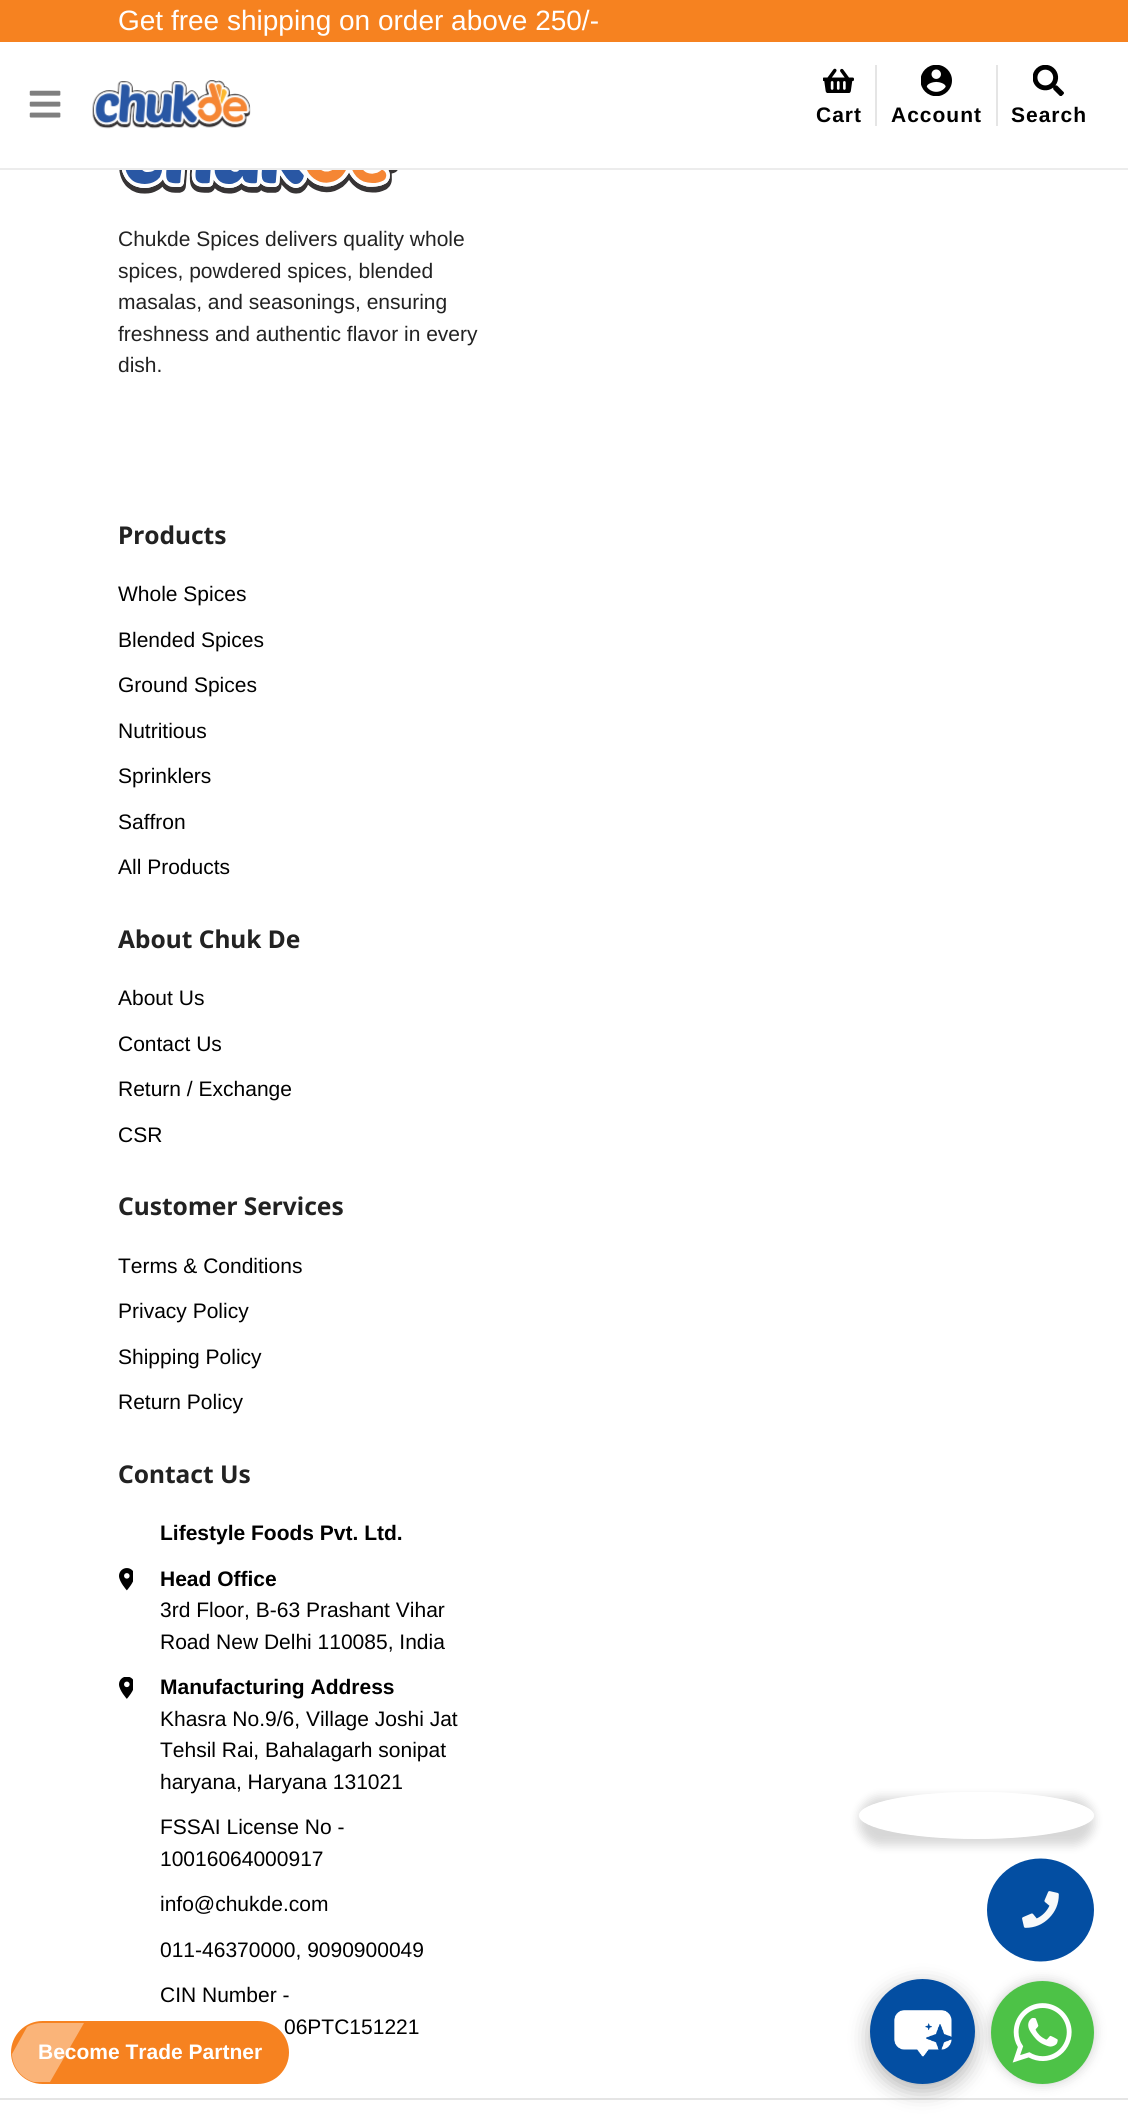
#include <cairo.h>
#include <math.h>
#include <stddef.h>


static void spaced_text(cairo_t *cr, double x, double y, const char *s, double letter, double word) {
    cairo_move_to(cr, x, y);
    while (*s) {
        char ch[5] = {0};
        int n = 0;
        do ch[n++] = *s++; while ((*s & 0xC0) == 0x80);
        cairo_show_text(cr, ch);
        cairo_rel_move_to(cr, letter + word * (*ch == ' '), 0);
    }
}

static void round_rect(cairo_t *cr, double x, double y, double w, double h, double r) {
    cairo_new_sub_path(cr);
    cairo_arc(cr, x + w - r, y + h - r, r, 0, M_PI / 2);
    cairo_arc(cr, x + r, y + h - r, r, M_PI / 2, M_PI);
    cairo_arc(cr, x + r, y + r, r, M_PI, 1.5 * M_PI);
    cairo_arc(cr, x + w - r, y + r, r, 1.5 * M_PI, 2 * M_PI);
    cairo_close_path(cr);
}

static void shadow(cairo_t *cr, double x, double y, double w, double h, double r, double blur, double alpha) {
    cairo_push_group_with_content(cr, CAIRO_CONTENT_ALPHA);
    cairo_set_operator(cr, CAIRO_OPERATOR_SOURCE);
    for (int i = 15; i >= -15 && fmin(w, h) + blur * i / 3 > 0; i -= 2) {
        double e = blur * i / 6;
        cairo_set_source_rgba(cr, 0, 0, 0, alpha * erfc((i - 1) / 8.5) / 2);
        round_rect(cr, x - e, y - e, w + 2 * e, h + 2 * e, fmax(0, fmin(r + e + blur * .6, fmin(w, h) / 2 + e)));
        cairo_fill(cr);
    }
    cairo_pattern_t *soft = cairo_pop_group(cr);
    cairo_mask(cr, soft);
    cairo_pattern_destroy(soft);
}

static void picture(cairo_t *cr, const char *path, double x, double y, double w, double h) {
    cairo_surface_t *image = cairo_image_surface_create_from_png(path);
    cairo_save(cr);
    cairo_set_source_surface(cr, image, x, y);
    cairo_rectangle(cr, x, y, w, h);
    cairo_fill(cr);
    cairo_restore(cr);
    cairo_surface_destroy(image);
}

int main(void) {
    cairo_surface_t *surface = cairo_image_surface_create(CAIRO_FORMAT_RGB24, 1128, 2118);
    cairo_t *cr = cairo_create(surface);
    cairo_font_options_t *options = cairo_font_options_create();
    cairo_font_options_set_hint_metrics(options, CAIRO_HINT_METRICS_OFF);
    cairo_font_options_set_hint_style(options, CAIRO_HINT_STYLE_NONE);
    cairo_set_font_options(cr, options);
    cairo_set_miter_limit(cr, 4);
    cairo_set_source_rgb(cr, 1, 1, 1);
    cairo_paint(cr);
    cairo_set_source_rgb(cr, 0.961, 0.51, 0.125);
    cairo_rectangle(cr, 0, 0, 1128, 42);
    cairo_fill(cr);
    cairo_select_font_face(cr, "Liberation Sans", CAIRO_FONT_SLANT_NORMAL, CAIRO_FONT_WEIGHT_NORMAL);
    cairo_set_font_size(cr, 28);
    cairo_set_source_rgb(cr, 1, 1, 1);
    cairo_move_to(cr, 118, 30);
    cairo_show_text(cr, "Get free shipping on order above 250/-");
    cairo_set_source_rgb(cr, 0.922, 0.922, 0.922);
    cairo_rectangle(cr, 0, 168, 1128, 2);
    cairo_fill(cr);
    picture(cr, "img1.png", 29, 90, 32, 28);
    picture(cr, "img2.png", 92, 80, 159, 49);
    cairo_set_source_rgb(cr, 0.898, 0.898, 0.898);
    cairo_rectangle(cr, 875, 65, 2, 61);
    cairo_fill(cr);
    picture(cr, "img3.png", 823, 68, 31, 25);
    cairo_select_font_face(cr, "Liberation Sans", CAIRO_FONT_SLANT_NORMAL, CAIRO_FONT_WEIGHT_BOLD);
    cairo_set_font_size(cr, 21);
    cairo_set_source_rgb(cr, 0, 0, 0);
    spaced_text(cr, 816, 122, "Cart", 1, 0);
    cairo_set_source_rgb(cr, 0.898, 0.898, 0.898);
    cairo_rectangle(cr, 996, 65, 2, 61);
    cairo_fill(cr);
    picture(cr, "img4.png", 921, 65, 31, 31);
    cairo_set_source_rgb(cr, 0, 0, 0);
    spaced_text(cr, 891, 122, "Account", 1, 0);
    picture(cr, "img5.png", 1033, 65, 31, 31);
    spaced_text(cr, 1011, 122, "Search", 1, 0);
    picture(cr, "img6.png", 119, 170, 279, 24);
    cairo_select_font_face(cr, "Liberation Sans", CAIRO_FONT_SLANT_NORMAL, CAIRO_FONT_WEIGHT_NORMAL);
    cairo_set_source_rgb(cr, 0.133, 0.133, 0.133);
    cairo_move_to(cr, 118, 246);
    cairo_show_text(cr, "Chukde Spices delivers quality whole");
    cairo_move_to(cr, 118, 278);
    cairo_show_text(cr, "spices, powdered spices, blended");
    cairo_move_to(cr, 118, 309);
    cairo_show_text(cr, "masalas, and seasonings, ensuring");
    cairo_move_to(cr, 118, 341);
    cairo_show_text(cr, "freshness and authentic flavor in every");
    cairo_move_to(cr, 118, 372);
    cairo_show_text(cr, "dish.");
    cairo_select_font_face(cr, "Noto Sans", CAIRO_FONT_SLANT_NORMAL, CAIRO_FONT_WEIGHT_BOLD);
    cairo_set_font_size(cr, 24.5);
    cairo_move_to(cr, 118, 544);
    cairo_show_text(cr, "Products");
    cairo_select_font_face(cr, "Liberation Sans", CAIRO_FONT_SLANT_NORMAL, CAIRO_FONT_WEIGHT_NORMAL);
    cairo_set_font_size(cr, 21);
    cairo_set_source_rgb(cr, 0, 0, 0);
    cairo_move_to(cr, 118, 601);
    cairo_show_text(cr, "Whole Spices");
    cairo_move_to(cr, 118, 647);
    cairo_show_text(cr, "Blended Spices");
    cairo_move_to(cr, 118, 692);
    cairo_show_text(cr, "Ground Spices");
    cairo_move_to(cr, 118, 738);
    cairo_show_text(cr, "Nutritious");
    cairo_move_to(cr, 118, 783);
    cairo_show_text(cr, "Sprinklers");
    cairo_move_to(cr, 118, 829);
    cairo_show_text(cr, "Saffron");
    cairo_move_to(cr, 118, 874);
    cairo_show_text(cr, "All Products");
    cairo_select_font_face(cr, "Noto Sans", CAIRO_FONT_SLANT_NORMAL, CAIRO_FONT_WEIGHT_BOLD);
    cairo_set_font_size(cr, 24.5);
    cairo_set_source_rgb(cr, 0.133, 0.133, 0.133);
    cairo_move_to(cr, 118, 948);
    cairo_show_text(cr, "About Chuk De");
    cairo_select_font_face(cr, "Liberation Sans", CAIRO_FONT_SLANT_NORMAL, CAIRO_FONT_WEIGHT_NORMAL);
    cairo_set_font_size(cr, 21);
    cairo_set_source_rgb(cr, 0, 0, 0);
    cairo_move_to(cr, 118, 1005);
    cairo_show_text(cr, "About Us");
    cairo_move_to(cr, 118, 1051);
    cairo_show_text(cr, "Contact Us");
    cairo_move_to(cr, 118, 1096);
    cairo_show_text(cr, "Return / Exchange");
    cairo_move_to(cr, 118, 1142);
    cairo_show_text(cr, "CSR");
    cairo_select_font_face(cr, "Noto Sans", CAIRO_FONT_SLANT_NORMAL, CAIRO_FONT_WEIGHT_BOLD);
    cairo_set_font_size(cr, 24.5);
    cairo_set_source_rgb(cr, 0.133, 0.133, 0.133);
    cairo_move_to(cr, 118, 1215);
    cairo_show_text(cr, "Customer Services");
    cairo_select_font_face(cr, "Liberation Sans", CAIRO_FONT_SLANT_NORMAL, CAIRO_FONT_WEIGHT_NORMAL);
    cairo_set_font_size(cr, 21);
    cairo_set_source_rgb(cr, 0, 0, 0);
    cairo_move_to(cr, 118, 1273);
    cairo_show_text(cr, "Terms & Conditions");
    cairo_move_to(cr, 118, 1318);
    cairo_show_text(cr, "Privacy Policy");
    cairo_move_to(cr, 118, 1364);
    cairo_show_text(cr, "Shipping Policy");
    cairo_move_to(cr, 118, 1409);
    cairo_show_text(cr, "Return Policy");
    cairo_select_font_face(cr, "Noto Sans", CAIRO_FONT_SLANT_NORMAL, CAIRO_FONT_WEIGHT_BOLD);
    cairo_set_font_size(cr, 24.5);
    cairo_set_source_rgb(cr, 0.133, 0.133, 0.133);
    cairo_move_to(cr, 118, 1483);
    cairo_show_text(cr, "Contact Us");
    cairo_select_font_face(cr, "Liberation Sans", CAIRO_FONT_SLANT_NORMAL, CAIRO_FONT_WEIGHT_BOLD);
    cairo_set_font_size(cr, 21);
    cairo_set_source_rgb(cr, 0, 0, 0);
    cairo_move_to(cr, 160, 1540);
    cairo_show_text(cr, "Lifestyle Foods Pvt. Ltd.");
    picture(cr, "img7.png", 119, 1568, 14, 23);
    cairo_move_to(cr, 160, 1586);
    cairo_show_text(cr, "Head Office");
    cairo_select_font_face(cr, "Liberation Sans", CAIRO_FONT_SLANT_NORMAL, CAIRO_FONT_WEIGHT_NORMAL);
    cairo_move_to(cr, 160, 1617);
    cairo_show_text(cr, "3rd Floor, B-63 Prashant Vihar");
    cairo_move_to(cr, 160, 1649);
    cairo_show_text(cr, "Road New Delhi 110085, India");
    picture(cr, "img8.png", 119, 1677, 14, 22);
    cairo_select_font_face(cr, "Liberation Sans", CAIRO_FONT_SLANT_NORMAL, CAIRO_FONT_WEIGHT_BOLD);
    cairo_move_to(cr, 160, 1694);
    cairo_show_text(cr, "Manufacturing Address");
    cairo_select_font_face(cr, "Liberation Sans", CAIRO_FONT_SLANT_NORMAL, CAIRO_FONT_WEIGHT_NORMAL);
    cairo_move_to(cr, 160, 1726);
    cairo_show_text(cr, "Khasra No.9/6, Village Joshi Jat");
    cairo_move_to(cr, 160, 1757);
    cairo_show_text(cr, "Tehsil Rai, Bahalagarh sonipat");
    cairo_move_to(cr, 160, 1789);
    cairo_show_text(cr, "haryana, Haryana 131021");
    cairo_move_to(cr, 160, 1834);
    cairo_show_text(cr, "FSSAI License No -");
    cairo_move_to(cr, 160, 1866);
    cairo_show_text(cr, "10016064000917");
    cairo_move_to(cr, 160, 1911);
    cairo_show_text(cr, "info@chukde.com");
    cairo_move_to(cr, 160, 1957);
    cairo_show_text(cr, "011-46370000, 9090900049");
    cairo_move_to(cr, 160, 2002);
    cairo_show_text(cr, "CIN Number -");
    cairo_move_to(cr, 284, 2034);
    cairo_show_text(cr, "06PTC151221");
    cairo_set_source_rgb(cr, 0.898, 0.898, 0.898);
    cairo_rectangle(cr, 0, 2098, 1128, 2);
    cairo_fill(cr);
    cairo_set_source_rgb(cr, 0.012, 0.306, 0.635);
    cairo_new_path(cr);
    cairo_move_to(cr, 1040.5, 1858.5);
    cairo_curve_to(cr, 1070, 1858.5, 1094, 1881.5, 1094, 1910);
    cairo_curve_to(cr, 1094, 1938.5, 1070, 1961.5, 1040.5, 1961.5);
    cairo_curve_to(cr, 1011, 1961.5, 987, 1938.5, 987, 1910);
    cairo_curve_to(cr, 987, 1881.5, 1011, 1858.5, 1040.5, 1858.5);
    cairo_close_path(cr);
    cairo_fill(cr);
    cairo_save(cr);
    cairo_set_fill_rule(cr, CAIRO_FILL_RULE_EVEN_ODD);
    cairo_new_path(cr);
    cairo_move_to(cr, 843, 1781);
    cairo_line_to(cr, 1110, 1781);
    cairo_line_to(cr, 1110, 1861);
    cairo_line_to(cr, 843, 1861);
    cairo_close_path(cr);
    cairo_move_to(cr, 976.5, 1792);
    cairo_curve_to(cr, 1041.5, 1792, 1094, 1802.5, 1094, 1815.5);
    cairo_curve_to(cr, 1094, 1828.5, 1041.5, 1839, 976.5, 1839);
    cairo_curve_to(cr, 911.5, 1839, 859, 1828.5, 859, 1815.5);
    cairo_curve_to(cr, 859, 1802.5, 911.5, 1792, 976.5, 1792);
    cairo_close_path(cr);
    cairo_clip(cr);
    cairo_set_source_rgb(cr, 0, 0, 0);
    shadow(cr, 859, 1797, 235, 48, 24, 5, 0.16);
    cairo_restore(cr);
    picture(cr, "img9.png", 1022, 1891, 37, 37);
    cairo_set_source_rgb(cr, 0.961, 0.51, 0.125);
    round_rect(cr, 12, 2022, 276, 61, 30.5);
    cairo_fill_preserve(cr);
    cairo_stroke(cr);
    cairo_select_font_face(cr, "Liberation Sans", CAIRO_FONT_SLANT_NORMAL, CAIRO_FONT_WEIGHT_BOLD);
    cairo_set_source_rgb(cr, 1, 1, 1);
    cairo_move_to(cr, 38, 2059);
    cairo_show_text(cr, "Become Trade Partner");
    cairo_set_source_rgba(cr, 1, 1, 1, 0.4);
    cairo_new_path(cr);
    cairo_move_to(cr, 42, 2023);
    cairo_line_to(cr, 84, 2023);
    cairo_line_to(cr, 50, 2082);
    cairo_line_to(cr, 34, 2082);
    cairo_curve_to(cr, 22, 2079, 12, 2067, 12, 2054);
    cairo_line_to(cr, 27, 2027);
    cairo_curve_to(cr, 32, 2024, 37, 2023, 42, 2023);
    cairo_close_path(cr);
    cairo_fill(cr);
    cairo_set_source_rgb(cr, 0, 0, 0);
    shadow(cr, 870, 1986, 105, 105, 52.5, 10.5, 0.3);
    cairo_set_source_rgb(cr, 0.012, 0.306, 0.635);
    cairo_arc(cr, 922.5, 2031.5, 52.5, 0, 2 * M_PI);
    cairo_fill(cr);
    picture(cr, "img10.png", 894, 2010, 58, 47);
    cairo_set_source_rgb(cr, 0, 0, 0);
    shadow(cr, 991, 1981, 103, 103, 51.5, 6, 0.2);
    cairo_set_source_rgb(cr, 0.302, 0.761, 0.278);
    cairo_arc(cr, 1042.5, 2032.5, 51.5, 0, 2 * M_PI);
    cairo_fill(cr);
    picture(cr, "img11.png", 1012, 2003, 60, 60);
    cairo_surface_write_to_png(surface, "page.png");
    cairo_font_options_destroy(options);
    cairo_destroy(cr);
    cairo_surface_destroy(surface);
    return 0;
}
